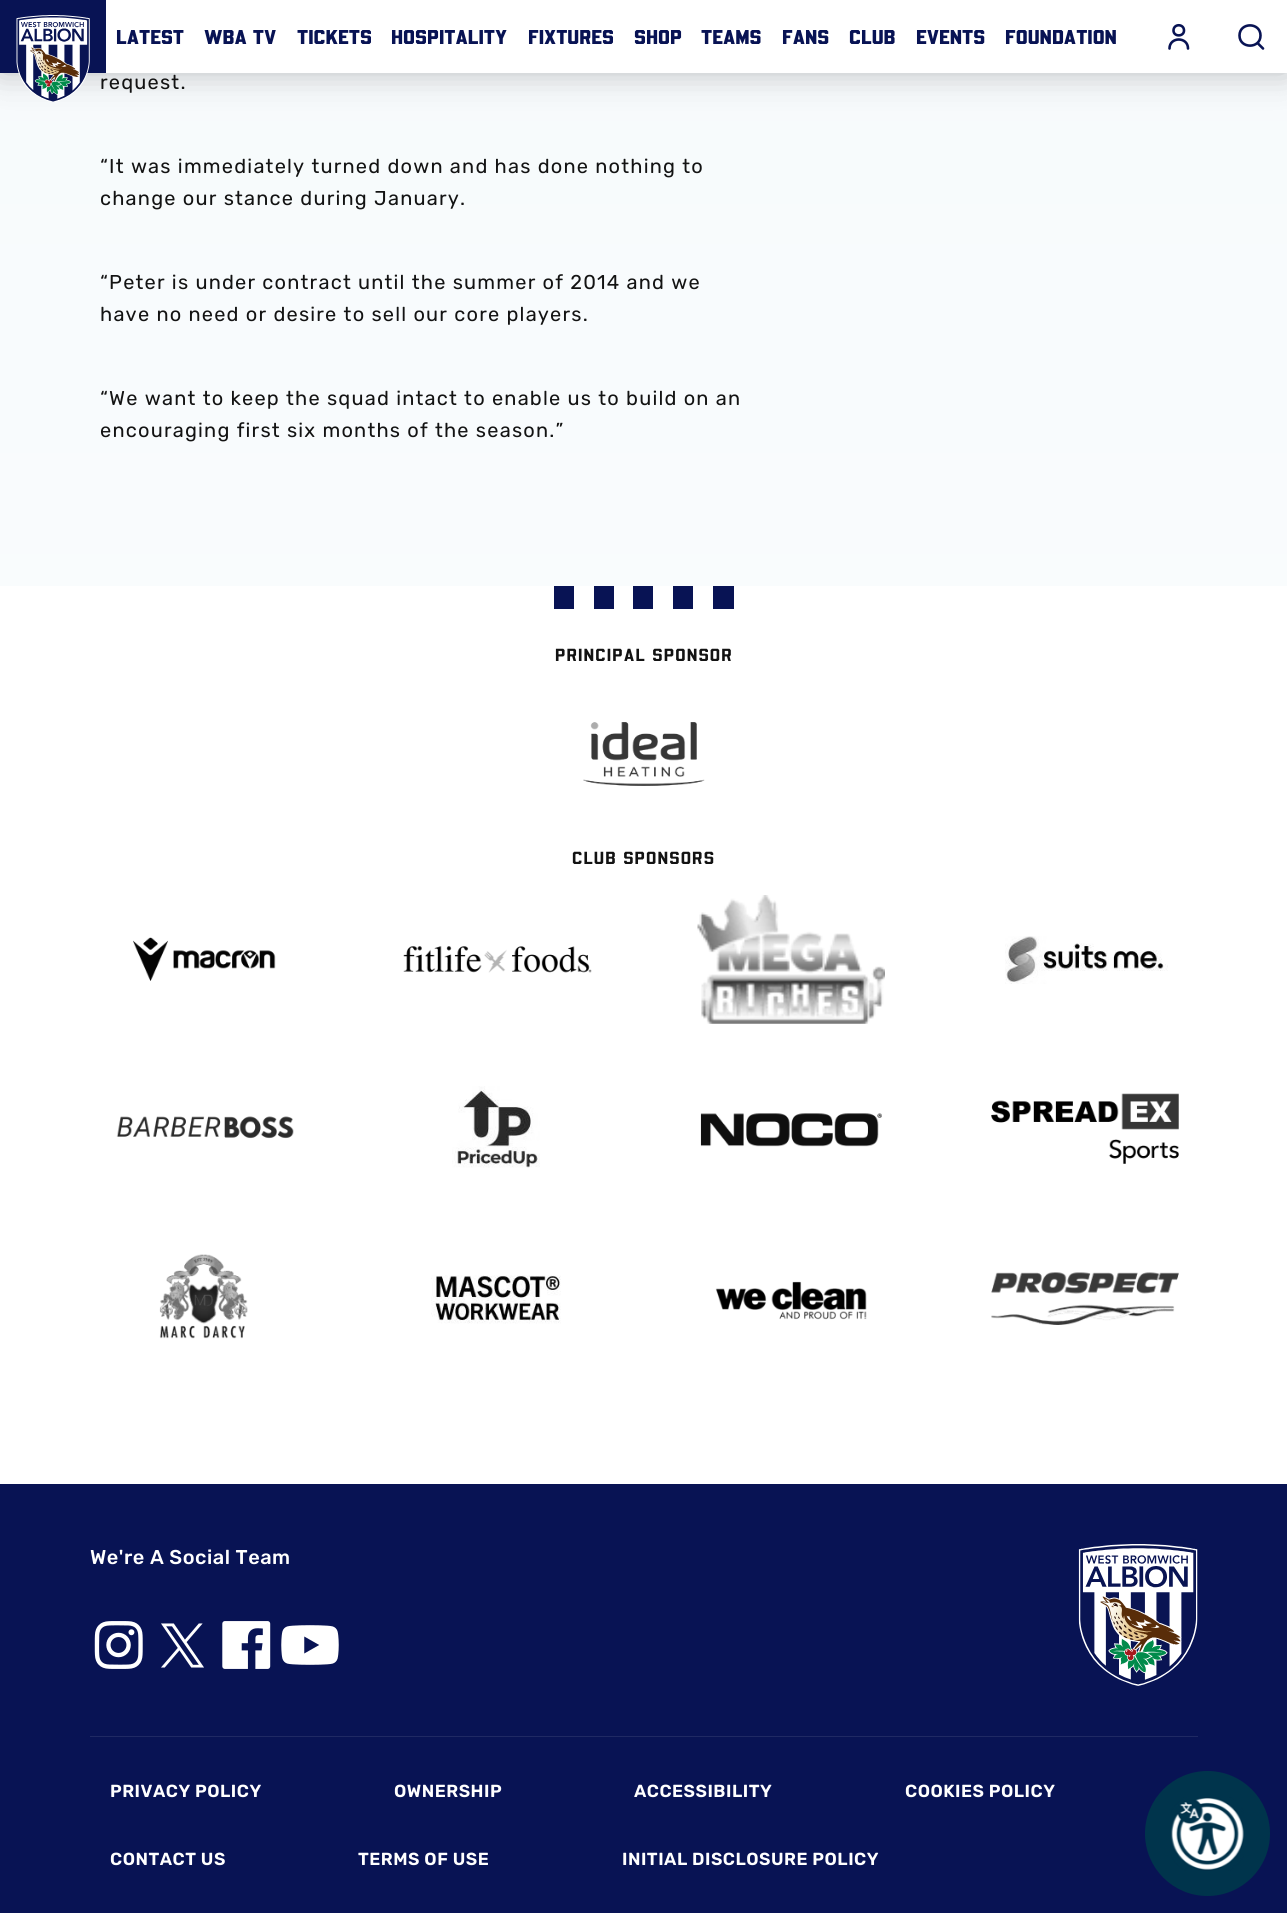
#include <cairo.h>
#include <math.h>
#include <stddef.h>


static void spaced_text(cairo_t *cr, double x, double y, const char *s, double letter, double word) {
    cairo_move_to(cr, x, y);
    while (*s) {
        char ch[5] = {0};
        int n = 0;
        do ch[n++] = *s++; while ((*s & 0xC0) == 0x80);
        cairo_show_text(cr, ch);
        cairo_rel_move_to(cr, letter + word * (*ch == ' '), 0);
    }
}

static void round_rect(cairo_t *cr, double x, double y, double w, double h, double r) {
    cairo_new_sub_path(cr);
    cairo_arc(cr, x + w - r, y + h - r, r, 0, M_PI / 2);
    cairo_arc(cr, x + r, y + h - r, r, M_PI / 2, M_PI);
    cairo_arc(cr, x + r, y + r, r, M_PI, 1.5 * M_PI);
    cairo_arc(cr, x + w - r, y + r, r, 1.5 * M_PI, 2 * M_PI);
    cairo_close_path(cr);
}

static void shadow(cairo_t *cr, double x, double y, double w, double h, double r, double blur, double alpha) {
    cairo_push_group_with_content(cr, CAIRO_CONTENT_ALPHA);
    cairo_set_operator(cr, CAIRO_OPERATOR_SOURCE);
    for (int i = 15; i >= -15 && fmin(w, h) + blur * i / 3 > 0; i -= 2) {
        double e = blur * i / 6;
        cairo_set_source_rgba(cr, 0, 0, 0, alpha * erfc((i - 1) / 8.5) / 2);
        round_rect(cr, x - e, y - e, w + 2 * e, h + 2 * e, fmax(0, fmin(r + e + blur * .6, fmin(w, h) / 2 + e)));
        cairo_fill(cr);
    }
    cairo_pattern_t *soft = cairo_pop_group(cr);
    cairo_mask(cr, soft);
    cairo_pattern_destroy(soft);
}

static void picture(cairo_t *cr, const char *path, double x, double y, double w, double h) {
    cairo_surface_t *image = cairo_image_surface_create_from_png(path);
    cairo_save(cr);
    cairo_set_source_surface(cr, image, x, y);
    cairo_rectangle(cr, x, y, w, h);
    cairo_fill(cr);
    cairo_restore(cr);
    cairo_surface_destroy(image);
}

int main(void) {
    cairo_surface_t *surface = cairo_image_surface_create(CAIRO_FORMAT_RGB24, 1287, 1913);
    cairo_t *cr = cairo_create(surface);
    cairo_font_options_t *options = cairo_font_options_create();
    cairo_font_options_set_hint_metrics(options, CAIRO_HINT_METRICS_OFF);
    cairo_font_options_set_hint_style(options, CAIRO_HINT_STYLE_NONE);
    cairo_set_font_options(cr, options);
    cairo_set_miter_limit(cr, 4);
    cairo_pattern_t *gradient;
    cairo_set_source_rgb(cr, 1, 1, 1);
    cairo_paint(cr);
    gradient = cairo_pattern_create_linear(644, -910, 644, 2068);
    cairo_pattern_add_color_stop_rgba(gradient, 0, 0.953, 0.973, 0.984, 1);
    cairo_pattern_add_color_stop_rgba(gradient, 1, 1, 1, 1, 1);
    cairo_set_source(cr, gradient);
    cairo_pattern_destroy(gradient);
    cairo_rectangle(cr, 0, 73, 1287, 513);
    cairo_fill(cr);
    cairo_set_source_rgb(cr, 0, 0, 0);
    shadow(cr, 0, 0, 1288, 73, 0, 25, 0.06);
    shadow(cr, 0, 0, 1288, 73, 0, 15.5, 0.2);
    cairo_set_source_rgb(cr, 1, 1, 1);
    cairo_rectangle(cr, 106, 0, 1181, 73);
    cairo_fill(cr);
    cairo_set_source_rgb(cr, 0.035, 0.078, 0.329);
    cairo_rectangle(cr, 0, 0, 106, 73);
    cairo_fill(cr);
    picture(cr, "img1.png", 16, 15, 74, 87);
    cairo_select_font_face(cr, "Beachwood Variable", CAIRO_FONT_SLANT_NORMAL, CAIRO_FONT_WEIGHT_BOLD);
    cairo_set_font_size(cr, 20);
    cairo_move_to(cr, 116, 44);
    cairo_show_text(cr, "LATEST");
    cairo_move_to(cr, 204, 44);
    cairo_show_text(cr, "WBA TV");
    cairo_move_to(cr, 297, 44);
    cairo_show_text(cr, "TICKETS");
    cairo_move_to(cr, 391, 44);
    cairo_show_text(cr, "HOSPITALITY");
    cairo_move_to(cr, 528, 44);
    cairo_show_text(cr, "FIXTURES");
    cairo_move_to(cr, 634, 44);
    cairo_show_text(cr, "SHOP");
    cairo_move_to(cr, 701, 44);
    cairo_show_text(cr, "TEAMS");
    cairo_move_to(cr, 782, 44);
    cairo_show_text(cr, "FANS");
    cairo_move_to(cr, 849, 44);
    cairo_show_text(cr, "CLUB");
    cairo_move_to(cr, 916, 44);
    cairo_show_text(cr, "EVENTS");
    cairo_move_to(cr, 1005, 44);
    cairo_show_text(cr, "FOUNDATION");
    cairo_new_path(cr);
    cairo_move_to(cr, 1169.5, 48.5);
    cairo_curve_to(cr, 1169.5, 36.5, 1188, 36.5, 1188, 48.5);
    cairo_move_to(cr, 1184, 30.5);
    cairo_curve_to(cr, 1184, 37, 1173.5, 37, 1173.5, 30.5);
    cairo_curve_to(cr, 1173.5, 23.5, 1184, 23.5, 1184, 30.5);
    cairo_close_path(cr);
    cairo_set_line_width(cr, 2.6);
    cairo_set_line_cap(cr, CAIRO_LINE_CAP_ROUND);
    cairo_set_line_join(cr, CAIRO_LINE_JOIN_ROUND);
    cairo_stroke(cr);
    cairo_new_path(cr);
    cairo_move_to(cr, 1257.5, 43);
    cairo_line_to(cr, 1263, 48.5);
    cairo_move_to(cr, 1260.5, 35.5);
    cairo_curve_to(cr, 1260.5, 49, 1239.5, 49, 1239.5, 35.5);
    cairo_curve_to(cr, 1239.5, 22, 1260.5, 22, 1260.5, 35.5);
    cairo_close_path(cr);
    cairo_stroke(cr);
    cairo_select_font_face(cr, "Rubik", CAIRO_FONT_SLANT_NORMAL, CAIRO_FONT_WEIGHT_NORMAL);
    cairo_set_source_rgb(cr, 0.078, 0.078, 0.078);
    spaced_text(cr, 100, 89, "request.", 1.2, 0);
    spaced_text(cr, 100, 173, "“It was immediately turned down and has done nothing to", 1.2, 0);
    spaced_text(cr, 100, 205, "change our stance during January.", 1.2, 0);
    spaced_text(cr, 100, 289, "“Peter is under contract until the summer of 2014 and we", 1.2, 0);
    spaced_text(cr, 100, 321, "have no need or desire to sell our core players.", 1.2, 0);
    spaced_text(cr, 100, 405, "“We want to keep the squad intact to enable us to build on an", 1.2, 0);
    spaced_text(cr, 100, 437, "encouraging first six months of the season.”", 1.2, 0);
    cairo_set_source_rgb(cr, 0.035, 0.078, 0.329);
    cairo_rectangle(cr, 554, 586, 20, 23);
    cairo_fill(cr);
    cairo_rectangle(cr, 594, 586, 20, 23);
    cairo_fill(cr);
    cairo_rectangle(cr, 633, 586, 20, 23);
    cairo_fill(cr);
    cairo_rectangle(cr, 673, 586, 20, 23);
    cairo_fill(cr);
    cairo_rectangle(cr, 713, 586, 21, 23);
    cairo_fill(cr);
    cairo_select_font_face(cr, "Beachwood Variable SemiBold", CAIRO_FONT_SLANT_NORMAL, CAIRO_FONT_WEIGHT_NORMAL);
    cairo_set_font_size(cr, 17.5);
    cairo_set_source_rgb(cr, 0.078, 0.078, 0.078);
    spaced_text(cr, 555, 661, "PRINCIPAL SPONSOR", 1.1, 0);
    picture(cr, "img2.png", 583, 722, 122, 64);
    spaced_text(cr, 572, 864, "CLUB SPONSORS", 1.1, 0);
    picture(cr, "img3.png", 133, 937, 143, 44);
    picture(cr, "img4.png", 403, 946, 189, 27);
    picture(cr, "img5.png", 697, 895, 188, 129);
    picture(cr, "img6.png", 1005, 936, 163, 48);
    picture(cr, "img7.png", 116, 1116, 178, 23);
    picture(cr, "img8.png", 452, 1086, 88, 82);
    picture(cr, "img9.png", 700, 1113, 182, 34);
    picture(cr, "img10.png", 991, 1093, 188, 71);
    picture(cr, "img11.png", 159, 1254, 89, 85);
    picture(cr, "img12.png", 431, 1275, 130, 49);
    picture(cr, "img13.png", 715, 1281, 152, 39);
    picture(cr, "img14.png", 991, 1272, 188, 53);
    cairo_set_source_rgb(cr, 0.035, 0.078, 0.329);
    cairo_rectangle(cr, 0, 1484, 1287, 429);
    cairo_fill(cr);
    cairo_select_font_face(cr, "Rubik Medium", CAIRO_FONT_SLANT_NORMAL, CAIRO_FONT_WEIGHT_NORMAL);
    cairo_set_font_size(cr, 20);
    cairo_set_source_rgb(cr, 1, 1, 1);
    spaced_text(cr, 90, 1564, "We're A Social Team", 0.5, 0);
    picture(cr, "img15.png", 94, 1621, 49, 48);
    picture(cr, "img16.png", 161, 1623, 43, 45);
    picture(cr, "img17.png", 222, 1621, 49, 48);
    picture(cr, "img18.png", 281, 1625, 58, 40);
    picture(cr, "img19.png", 1078, 1544, 120, 142);
    cairo_set_source_rgb(cr, 0.122, 0.161, 0.388);
    cairo_rectangle(cr, 90, 1736, 1108, 1);
    cairo_fill(cr);
    cairo_select_font_face(cr, "Rubik SemiBold", CAIRO_FONT_SLANT_NORMAL, CAIRO_FONT_WEIGHT_NORMAL);
    cairo_set_font_size(cr, 17.5);
    cairo_set_source_rgb(cr, 1, 1, 1);
    spaced_text(cr, 110, 1797, "PRIVACY POLICY", 0.5, 0);
    spaced_text(cr, 394, 1797, "OWNERSHIP", 0.5, 0);
    spaced_text(cr, 634, 1797, "ACCESSIBILITY", 0.5, 0);
    spaced_text(cr, 905, 1797, "COOKIES POLICY", 0.5, 0);
    spaced_text(cr, 110, 1865, "CONTACT US", 0.5, 0);
    spaced_text(cr, 358, 1865, "TERMS OF USE", 0.5, 0);
    spaced_text(cr, 622, 1865, "INITIAL DISCLOSURE POLICY", 0.5, 0);
    cairo_set_source_rgb(cr, 0, 0.204, 0.298);
    cairo_new_path(cr);
    cairo_arc(cr, 1207.5, 1833.5, 62.5, 0, 2 * M_PI);
    cairo_fill(cr);
    picture(cr, "img20.png", 1171, 1797, 73, 74);
    cairo_surface_write_to_png(surface, "page.png");
    cairo_font_options_destroy(options);
    cairo_destroy(cr);
    cairo_surface_destroy(surface);
    return 0;
}
